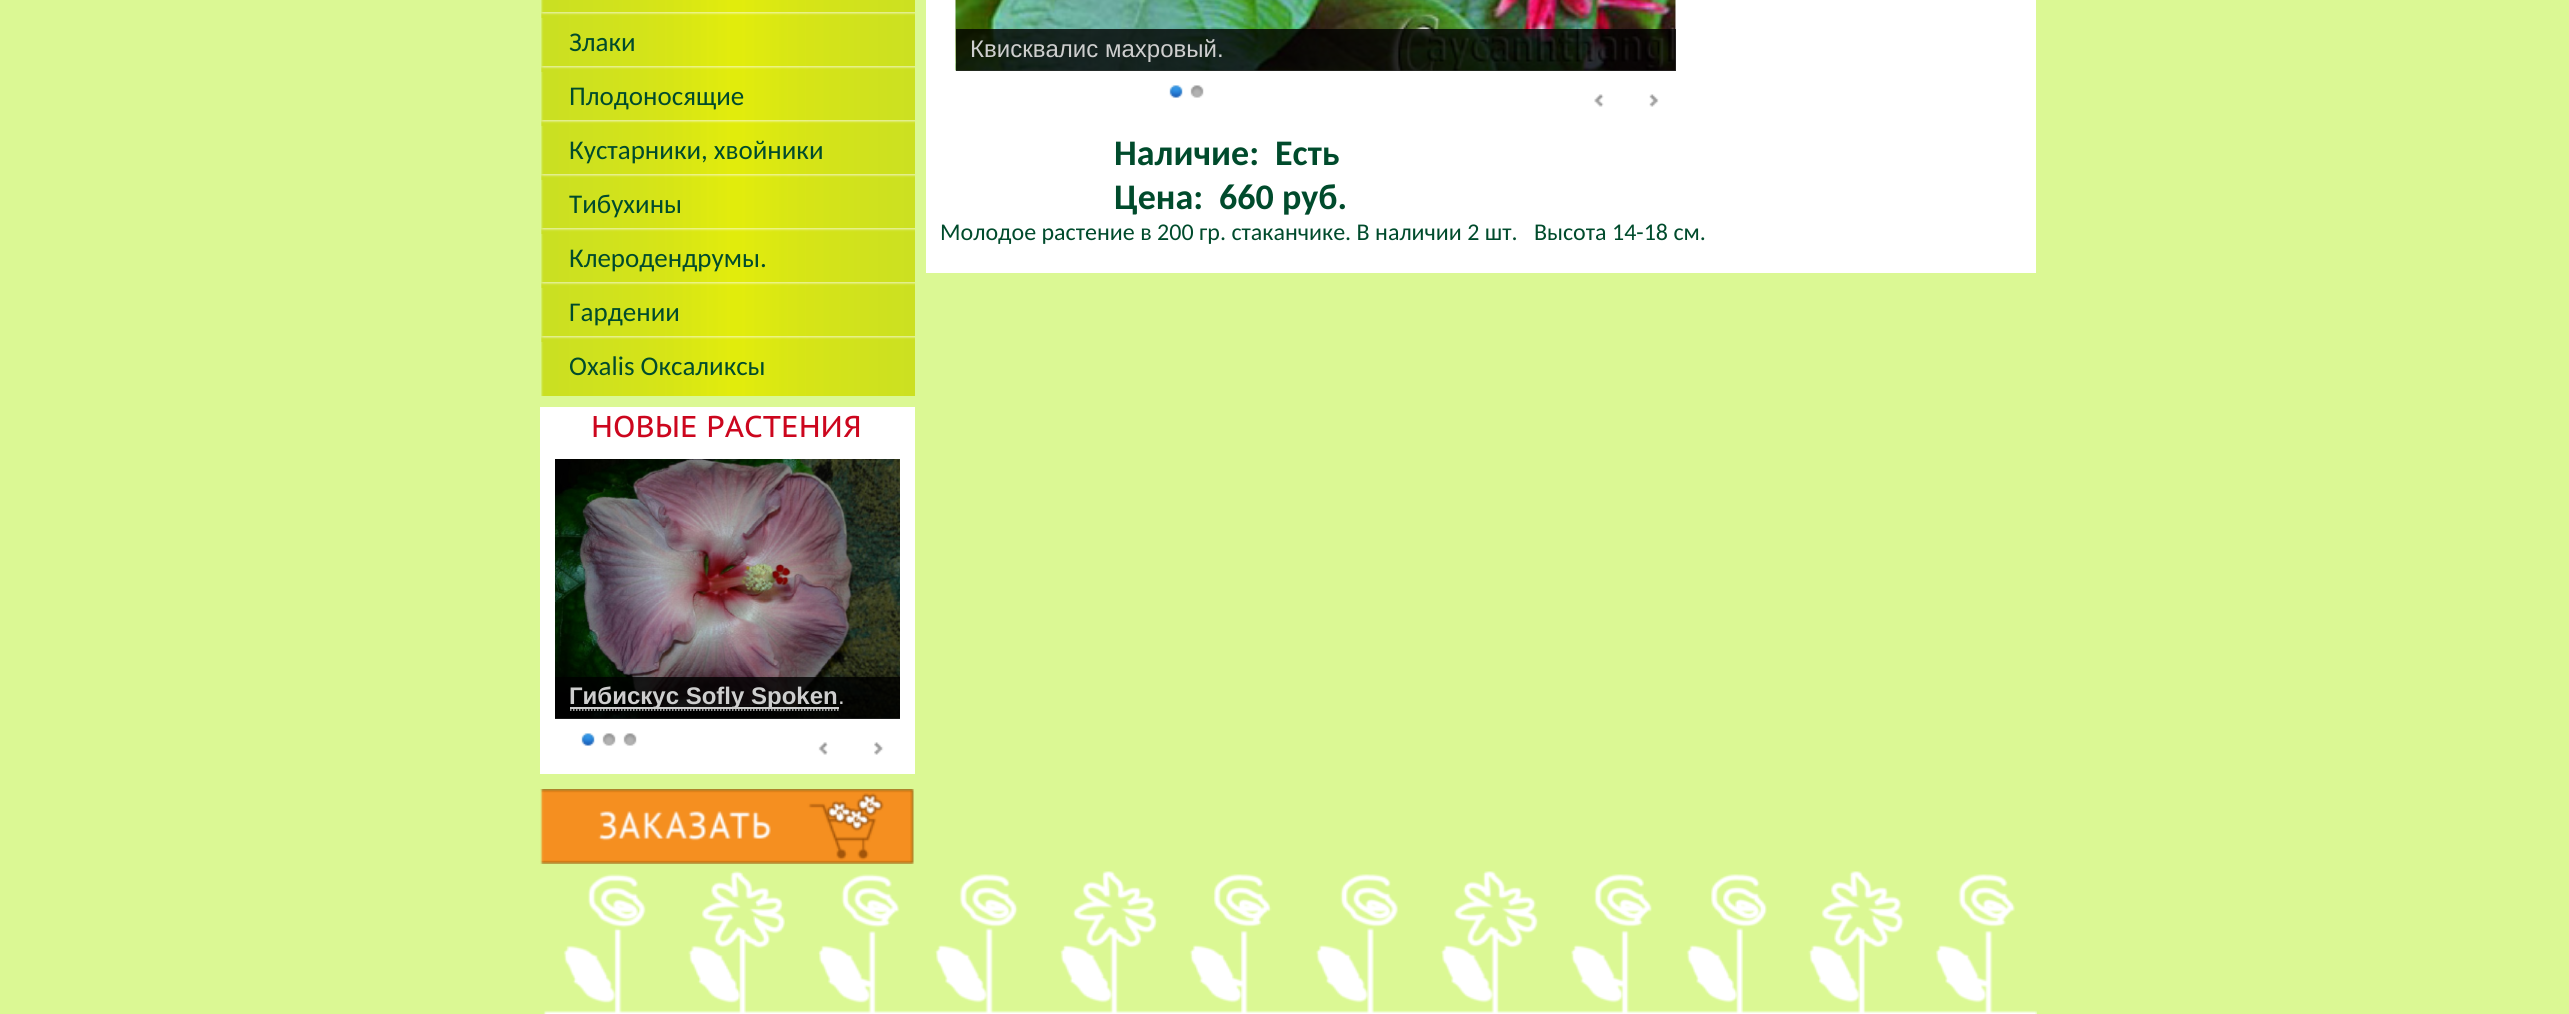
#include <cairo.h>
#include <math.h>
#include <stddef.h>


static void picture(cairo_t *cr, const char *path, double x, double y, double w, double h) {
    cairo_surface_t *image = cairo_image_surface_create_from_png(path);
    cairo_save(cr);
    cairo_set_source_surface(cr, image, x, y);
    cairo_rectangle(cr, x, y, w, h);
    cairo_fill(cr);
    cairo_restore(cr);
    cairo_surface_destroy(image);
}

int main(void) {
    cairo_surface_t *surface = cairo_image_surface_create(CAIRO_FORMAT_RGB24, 2569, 1014);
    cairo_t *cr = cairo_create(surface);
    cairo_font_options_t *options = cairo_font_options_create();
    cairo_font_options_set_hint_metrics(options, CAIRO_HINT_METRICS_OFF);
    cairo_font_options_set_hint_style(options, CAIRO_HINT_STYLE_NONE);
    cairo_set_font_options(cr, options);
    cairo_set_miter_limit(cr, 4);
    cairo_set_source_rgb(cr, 0.859, 0.969, 0.58);
    cairo_paint(cr);
    picture(cr, "img1.png", 541, 0, 374, 18);
    picture(cr, "img2.png", 541, 12, 374, 60);
    cairo_select_font_face(cr, "Carlito", CAIRO_FONT_SLANT_NORMAL, CAIRO_FONT_WEIGHT_NORMAL);
    cairo_set_font_size(cr, 27);
    cairo_set_source_rgb(cr, 0, 0.294, 0.173);
    cairo_move_to(cr, 569, 51);
    cairo_show_text(cr, "Злаки");
    picture(cr, "img2.png", 541, 66, 374, 60);
    cairo_move_to(cr, 569, 105);
    cairo_show_text(cr, "Плодоносящие");
    picture(cr, "img2.png", 541, 120, 374, 60);
    cairo_move_to(cr, 569, 159);
    cairo_show_text(cr, "Кустарники, хвойники");
    picture(cr, "img2.png", 541, 174, 374, 60);
    cairo_move_to(cr, 569, 213);
    cairo_show_text(cr, "Тибухины");
    picture(cr, "img2.png", 541, 228, 374, 60);
    cairo_move_to(cr, 569, 267);
    cairo_show_text(cr, "Клеродендрумы.");
    picture(cr, "img2.png", 541, 282, 374, 60);
    cairo_move_to(cr, 569, 321);
    cairo_show_text(cr, "Гардении");
    picture(cr, "img2.png", 541, 336, 374, 60);
    cairo_move_to(cr, 569, 375);
    cairo_show_text(cr, "Oxalis Оксаликсы");
    cairo_set_source_rgb(cr, 1, 1, 1);
    cairo_rectangle(cr, 540, 407, 375, 367);
    cairo_fill(cr);
    cairo_select_font_face(cr, "PT Sans Caption", CAIRO_FONT_SLANT_NORMAL, CAIRO_FONT_WEIGHT_NORMAL);
    cairo_set_font_size(cr, 30);
    cairo_set_source_rgb(cr, 0.8, 0.027, 0.118);
    cairo_move_to(cr, 591, 437);
    cairo_show_text(cr, "НОВЫЕ РАСТЕНИЯ");
    picture(cr, "img3.png", 555, 459, 345, 260);
    cairo_set_source_rgba(cr, 0, 0, 0, 0.8);
    cairo_rectangle(cr, 555, 677, 345, 42);
    cairo_fill(cr);
    cairo_set_source_rgba(cr, 1, 1, 1, 0.8);
    cairo_rectangle(cr, 570, 707, 269, 2);
    cairo_fill(cr);
    cairo_select_font_face(cr, "Liberation Sans", CAIRO_FONT_SLANT_NORMAL, CAIRO_FONT_WEIGHT_BOLD);
    cairo_set_font_size(cr, 24);
    cairo_set_source_rgb(cr, 0.808, 0.808, 0.808);
    cairo_move_to(cr, 569, 704);
    cairo_show_text(cr, "Гибискус Sofly Spoken");
    cairo_new_path(cr);
    cairo_move_to(cr, 570, 710);
    cairo_line_to(cr, 838.5, 710);
    cairo_set_source_rgba(cr, 1, 1, 1, 0.8);
    cairo_set_line_width(cr, 1.5);
    cairo_set_dash(cr, (double[]){1.5, 1.5}, 2, 0);
    cairo_stroke(cr);
    cairo_select_font_face(cr, "Liberation Sans", CAIRO_FONT_SLANT_NORMAL, CAIRO_FONT_WEIGHT_NORMAL);
    cairo_set_source_rgb(cr, 0.808, 0.808, 0.808);
    cairo_move_to(cr, 838, 704);
    cairo_show_text(cr, ".");
    picture(cr, "img4.png", 818, 742, 10, 13);
    picture(cr, "img5.png", 874, 742, 10, 13);
    picture(cr, "img6.png", 581, 733, 14, 13);
    picture(cr, "img7.png", 602, 733, 14, 13);
    picture(cr, "img7.png", 623, 733, 14, 13);
    picture(cr, "img8.png", 540, 789, 374, 75);
    cairo_set_source_rgb(cr, 1, 1, 1);
    cairo_rectangle(cr, 926, 0, 1110, 273);
    cairo_fill(cr);
    picture(cr, "img9.png", 955, 0, 721, 71);
    cairo_set_source_rgba(cr, 0, 0, 0, 0.8);
    cairo_rectangle(cr, 956, 29, 720, 42);
    cairo_fill(cr);
    cairo_set_source_rgb(cr, 0.808, 0.808, 0.808);
    cairo_move_to(cr, 970, 57);
    cairo_show_text(cr, "Квисквалис");
    cairo_move_to(cr, 1105, 57);
    cairo_show_text(cr, "махровый.");
    picture(cr, "img10.png", 1594, 94, 10, 13);
    picture(cr, "img11.png", 1649, 94, 10, 13);
    picture(cr, "img6.png", 1169, 85, 14, 13);
    picture(cr, "img7.png", 1190, 85, 14, 13);
    cairo_select_font_face(cr, "Carlito", CAIRO_FONT_SLANT_NORMAL, CAIRO_FONT_WEIGHT_BOLD);
    cairo_set_font_size(cr, 36);
    cairo_set_source_rgb(cr, 0, 0.294, 0.173);
    cairo_move_to(cr, 1114, 165);
    cairo_show_text(cr, "Наличие:");
    cairo_move_to(cr, 1275, 165);
    cairo_show_text(cr, "Есть");
    cairo_move_to(cr, 1114, 209);
    cairo_show_text(cr, "Цена:");
    cairo_move_to(cr, 1219, 209);
    cairo_show_text(cr, "660 руб.");
    cairo_select_font_face(cr, "Carlito", CAIRO_FONT_SLANT_NORMAL, CAIRO_FONT_WEIGHT_NORMAL);
    cairo_set_font_size(cr, 24);
    cairo_move_to(cr, 940, 240);
    cairo_show_text(cr, "Молодое растение в 200 гр. стаканчике. В наличии 2 шт.   Высота 14-18 см.");
    picture(cr, "img12.png", 543, 871, 1494, 143);
    cairo_surface_write_to_png(surface, "page.png");
    cairo_font_options_destroy(options);
    cairo_destroy(cr);
    cairo_surface_destroy(surface);
    return 0;
}
